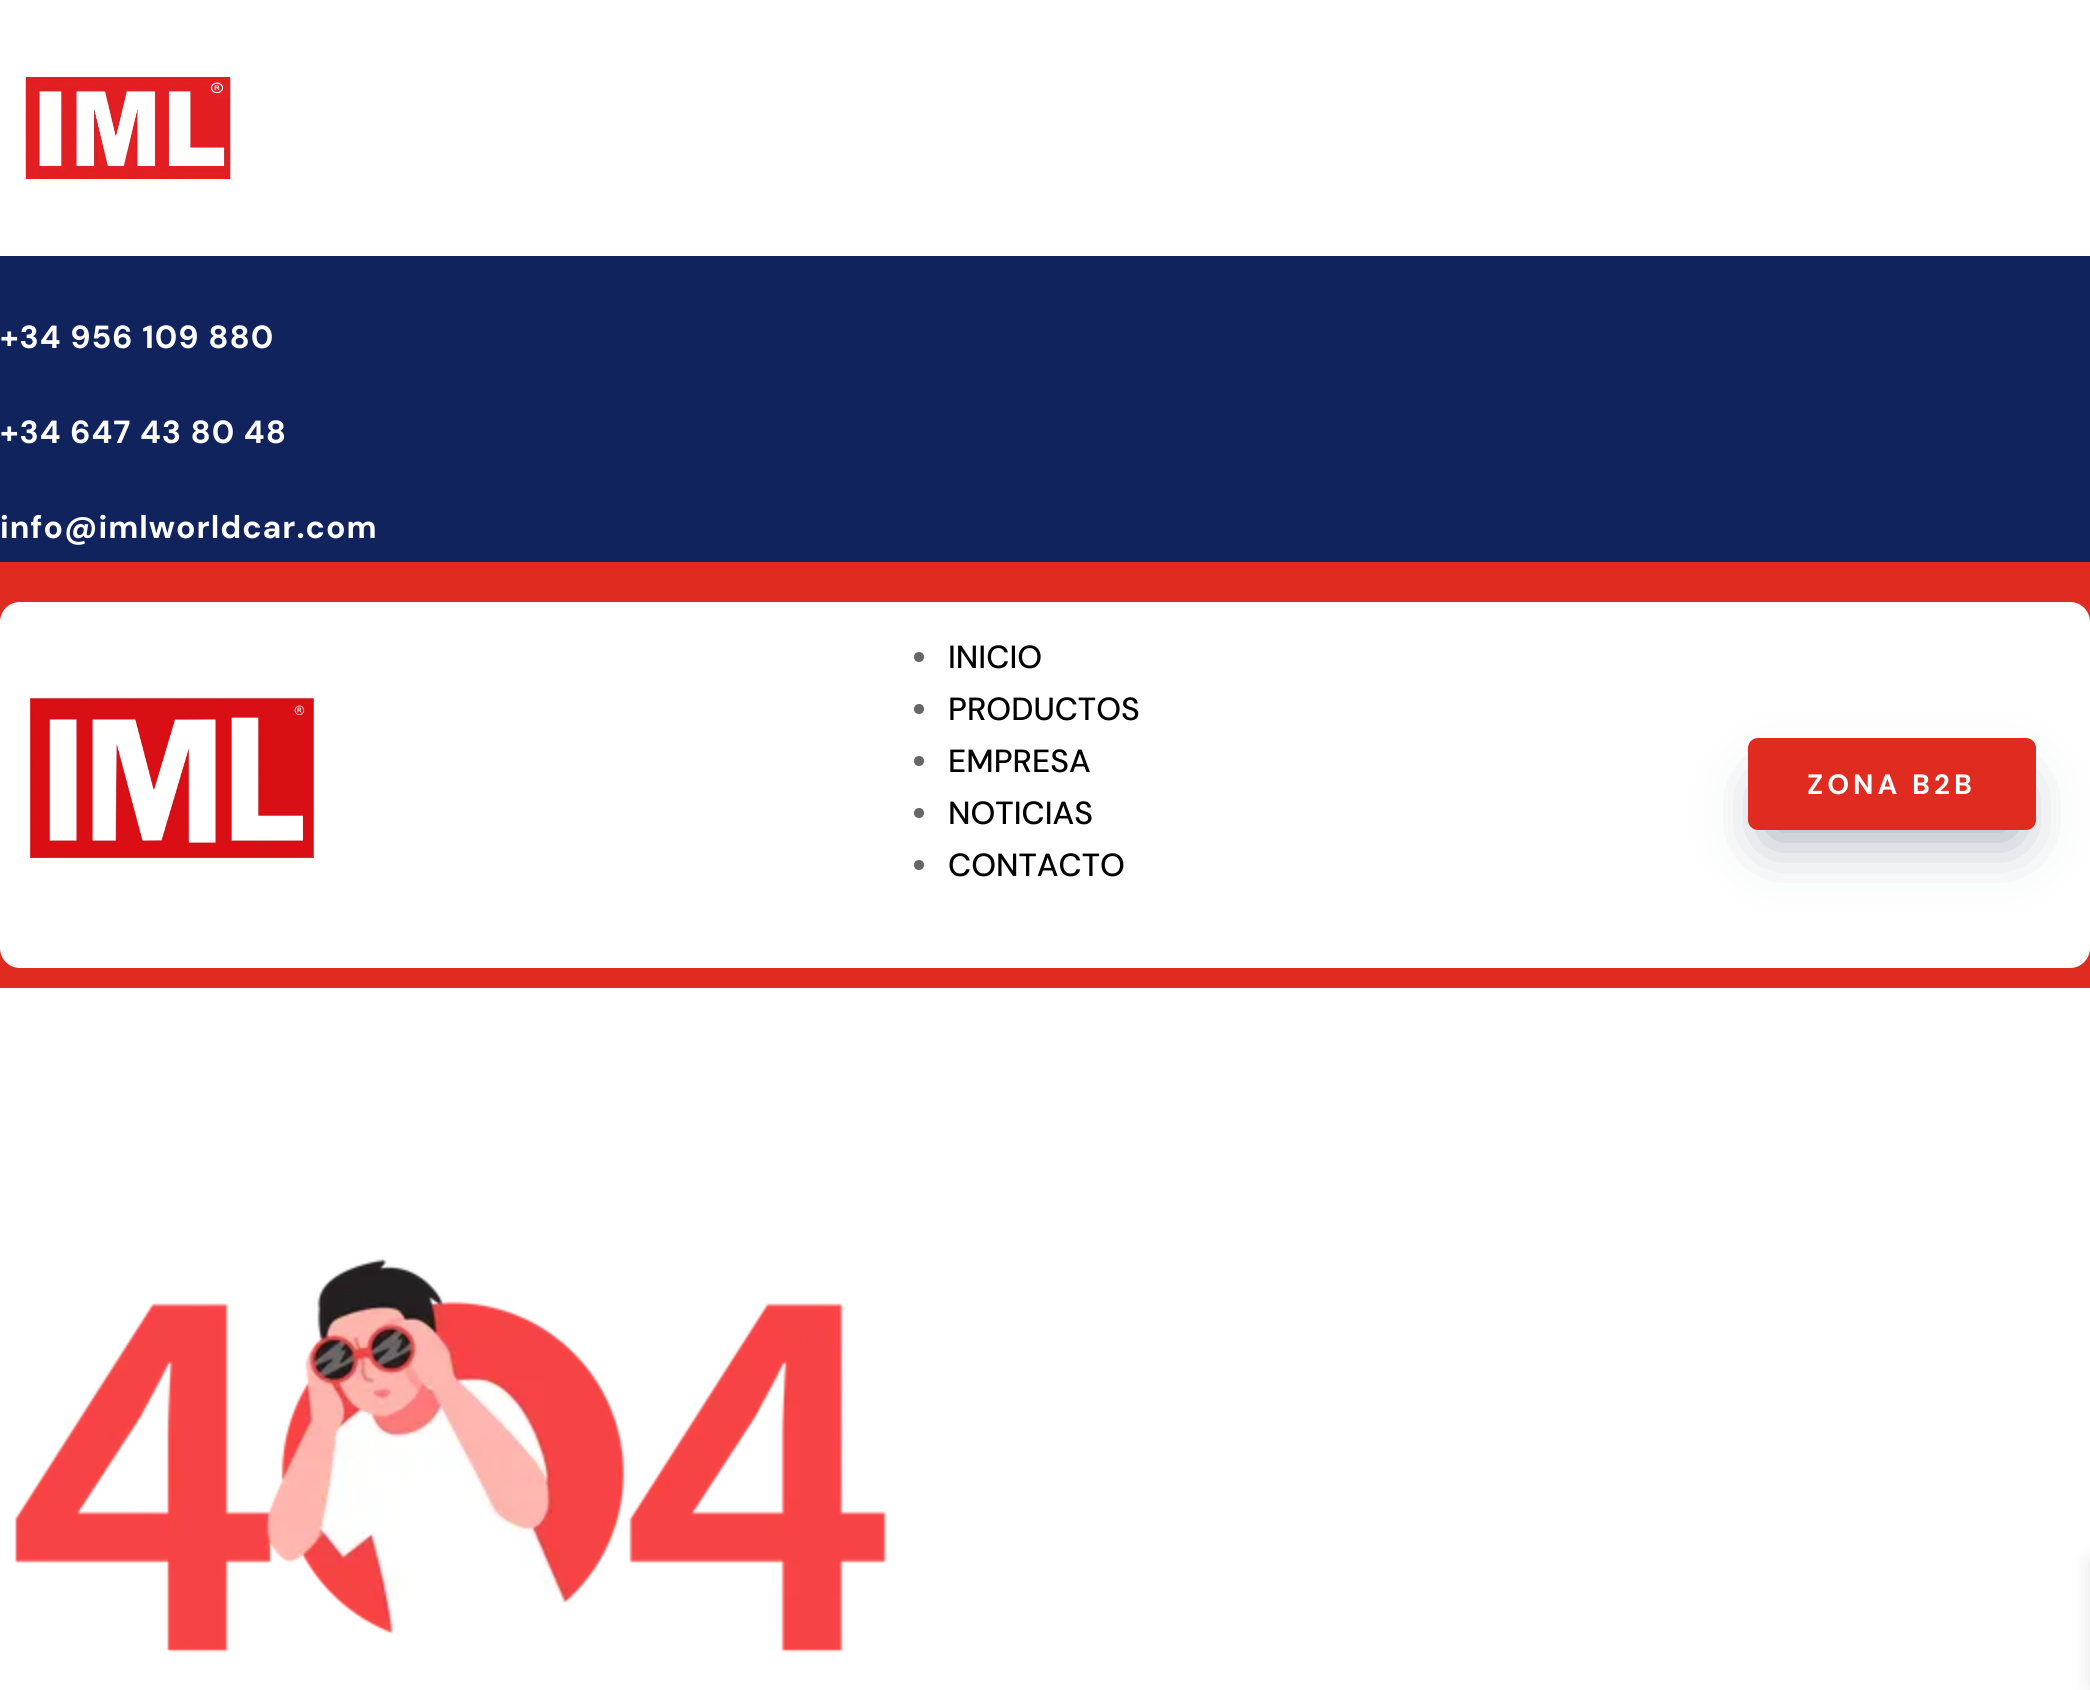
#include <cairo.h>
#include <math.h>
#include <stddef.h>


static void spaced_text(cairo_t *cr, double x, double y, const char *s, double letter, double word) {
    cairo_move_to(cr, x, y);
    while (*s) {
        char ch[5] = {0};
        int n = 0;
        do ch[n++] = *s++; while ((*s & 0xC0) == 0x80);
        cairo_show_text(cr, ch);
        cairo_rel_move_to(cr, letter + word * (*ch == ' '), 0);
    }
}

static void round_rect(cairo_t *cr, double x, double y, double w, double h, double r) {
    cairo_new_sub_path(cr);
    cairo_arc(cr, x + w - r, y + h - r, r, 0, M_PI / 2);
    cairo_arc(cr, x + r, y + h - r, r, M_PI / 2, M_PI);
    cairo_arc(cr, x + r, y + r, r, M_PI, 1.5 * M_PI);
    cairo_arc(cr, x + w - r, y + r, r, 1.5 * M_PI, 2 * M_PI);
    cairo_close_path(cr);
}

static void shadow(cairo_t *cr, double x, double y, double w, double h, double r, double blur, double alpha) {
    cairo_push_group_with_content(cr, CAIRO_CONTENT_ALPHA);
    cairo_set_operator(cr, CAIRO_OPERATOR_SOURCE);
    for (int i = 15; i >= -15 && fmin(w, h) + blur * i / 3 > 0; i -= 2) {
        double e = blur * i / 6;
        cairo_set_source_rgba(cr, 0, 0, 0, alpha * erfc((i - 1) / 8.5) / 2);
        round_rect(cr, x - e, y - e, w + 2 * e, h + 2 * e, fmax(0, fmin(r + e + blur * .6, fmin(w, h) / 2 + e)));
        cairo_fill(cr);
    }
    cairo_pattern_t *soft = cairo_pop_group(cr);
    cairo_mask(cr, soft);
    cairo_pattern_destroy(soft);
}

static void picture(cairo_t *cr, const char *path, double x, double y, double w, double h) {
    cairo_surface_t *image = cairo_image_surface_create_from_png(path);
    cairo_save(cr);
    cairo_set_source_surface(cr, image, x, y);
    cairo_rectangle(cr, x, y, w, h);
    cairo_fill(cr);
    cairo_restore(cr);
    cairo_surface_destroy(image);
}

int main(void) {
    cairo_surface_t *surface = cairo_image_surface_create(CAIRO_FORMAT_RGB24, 2090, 1690);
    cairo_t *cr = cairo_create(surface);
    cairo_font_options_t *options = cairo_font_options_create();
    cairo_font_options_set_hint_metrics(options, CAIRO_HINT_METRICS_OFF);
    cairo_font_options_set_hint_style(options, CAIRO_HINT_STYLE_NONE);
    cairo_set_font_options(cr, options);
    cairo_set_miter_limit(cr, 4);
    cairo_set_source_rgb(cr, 1, 1, 1);
    cairo_paint(cr);
    picture(cr, "img1.png", 25, 77, 206, 102);
    cairo_set_source_rgb(cr, 0.063, 0.137, 0.365);
    cairo_rectangle(cr, 0, 256, 2090, 306);
    cairo_fill(cr);
    cairo_select_font_face(cr, "DM Sans", CAIRO_FONT_SLANT_NORMAL, CAIRO_FONT_WEIGHT_BOLD);
    cairo_set_font_size(cr, 32);
    cairo_set_source_rgb(cr, 1, 1, 1);
    spaced_text(cr, 0, 348, "+34 956 109 880", 1, 0);
    spaced_text(cr, 0, 443, "+34 647 43 80 48", 1, 0);
    spaced_text(cr, 0, 538, "info@imlworldcar.com", 1, 0);
    cairo_set_source_rgb(cr, 0.878, 0.169, 0.125);
    cairo_rectangle(cr, 0, 562, 2090, 426);
    cairo_fill(cr);
    cairo_set_source_rgb(cr, 1, 1, 1);
    round_rect(cr, 0, 602, 2090, 366, 20);
    cairo_fill(cr);
    picture(cr, "img2.png", 30, 698, 284, 160);
    cairo_set_source_rgb(cr, 0.4, 0.4, 0.4);
    cairo_arc(cr, 919, 657, 5, 0, 2 * M_PI);
    cairo_fill(cr);
    cairo_select_font_face(cr, "DM Sans Medium", CAIRO_FONT_SLANT_NORMAL, CAIRO_FONT_WEIGHT_NORMAL);
    cairo_set_source_rgb(cr, 0, 0, 0);
    cairo_move_to(cr, 948, 668);
    cairo_show_text(cr, "INICIO");
    cairo_set_source_rgb(cr, 0.4, 0.4, 0.4);
    cairo_new_path(cr);
    cairo_arc(cr, 919, 709, 5, 0, 2 * M_PI);
    cairo_fill(cr);
    cairo_set_source_rgb(cr, 0, 0, 0);
    cairo_move_to(cr, 948, 720);
    cairo_show_text(cr, "PRODUCTOS");
    cairo_set_source_rgb(cr, 0.4, 0.4, 0.4);
    cairo_new_path(cr);
    cairo_arc(cr, 919, 761, 5, 0, 2 * M_PI);
    cairo_fill(cr);
    cairo_set_source_rgb(cr, 0, 0, 0);
    cairo_move_to(cr, 948, 772);
    cairo_show_text(cr, "EMPRESA");
    cairo_set_source_rgb(cr, 0.4, 0.4, 0.4);
    cairo_new_path(cr);
    cairo_arc(cr, 919, 813, 5, 0, 2 * M_PI);
    cairo_fill(cr);
    cairo_set_source_rgb(cr, 0, 0, 0);
    cairo_move_to(cr, 948, 824);
    cairo_show_text(cr, "NOTICIAS");
    cairo_set_source_rgb(cr, 0.4, 0.4, 0.4);
    cairo_new_path(cr);
    cairo_arc(cr, 919, 865, 5, 0, 2 * M_PI);
    cairo_fill(cr);
    cairo_set_source_rgb(cr, 0, 0, 0);
    cairo_move_to(cr, 948, 876);
    cairo_show_text(cr, "CONTACTO");
    cairo_set_source_rgb(cr, 0.086, 0.161, 0.267);
    shadow(cr, 1768, 786, 248, 52, 0, 30, 0.4);
    cairo_set_source_rgb(cr, 0.878, 0.169, 0.125);
    round_rect(cr, 1748, 738, 288, 92, 10);
    cairo_fill(cr);
    cairo_select_font_face(cr, "DM Sans", CAIRO_FONT_SLANT_NORMAL, CAIRO_FONT_WEIGHT_BOLD);
    cairo_set_font_size(cr, 28);
    cairo_set_source_rgb(cr, 1, 1, 1);
    spaced_text(cr, 1807, 794, "ZONA B2B", 4, 0);
    picture(cr, "img3.png", 14, 1259, 873, 394);
    cairo_set_source_rgb(cr, 0, 0, 0);
    shadow(cr, 2090, 1560, 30, 128, 0, 10, 0.1);
    cairo_surface_write_to_png(surface, "page.png");
    cairo_font_options_destroy(options);
    cairo_destroy(cr);
    cairo_surface_destroy(surface);
    return 0;
}
